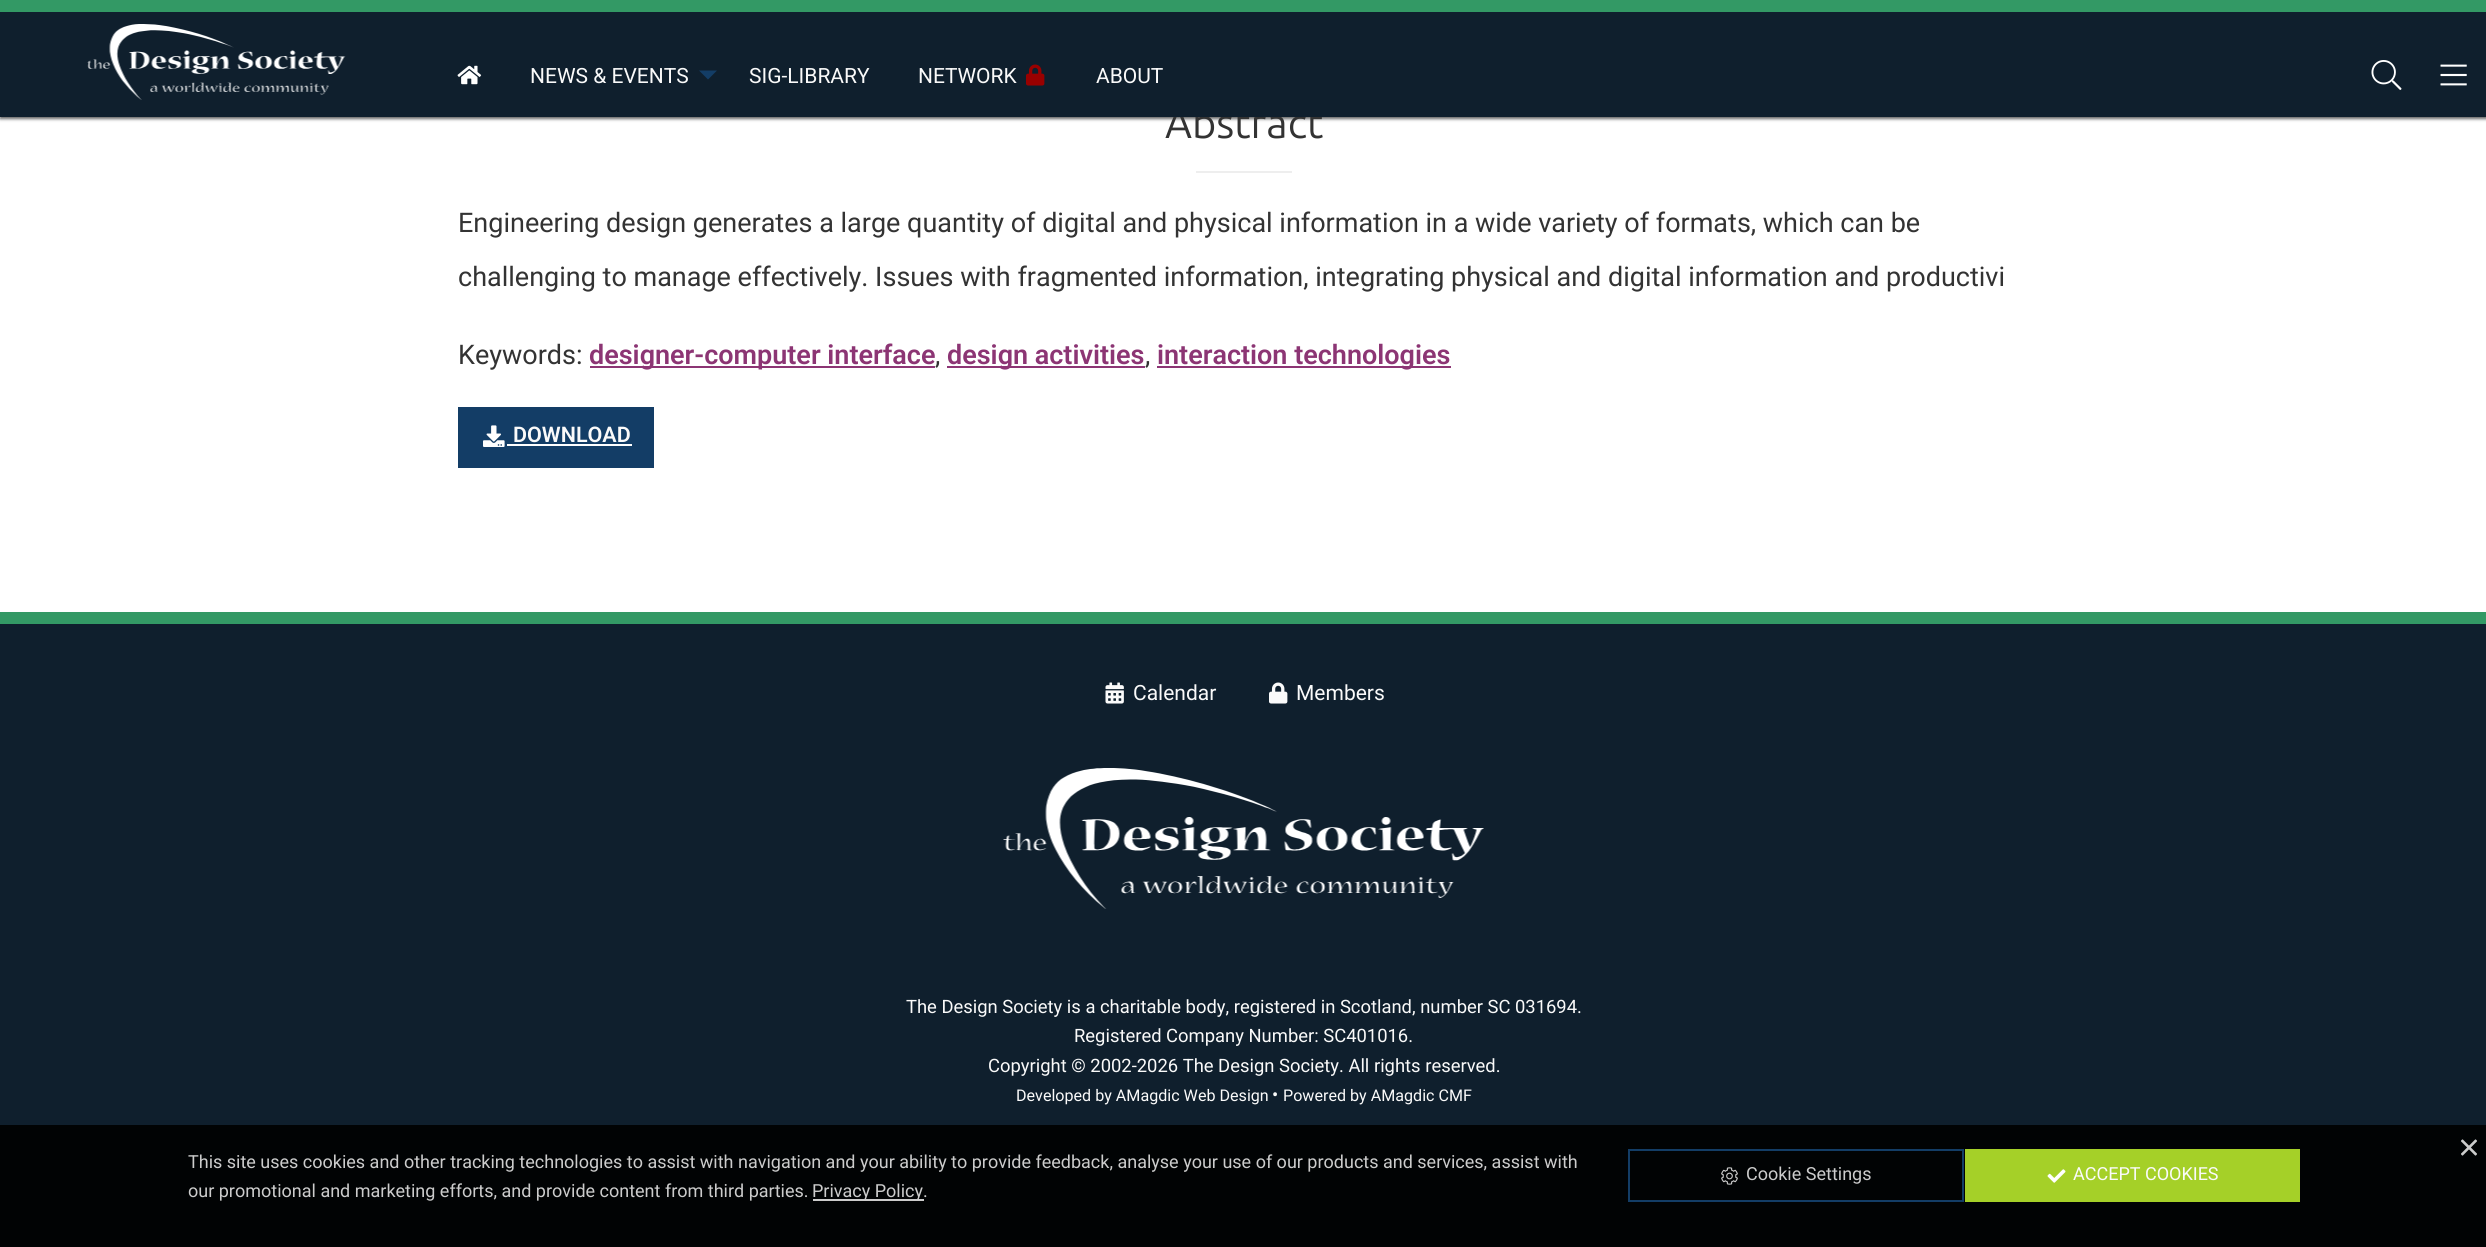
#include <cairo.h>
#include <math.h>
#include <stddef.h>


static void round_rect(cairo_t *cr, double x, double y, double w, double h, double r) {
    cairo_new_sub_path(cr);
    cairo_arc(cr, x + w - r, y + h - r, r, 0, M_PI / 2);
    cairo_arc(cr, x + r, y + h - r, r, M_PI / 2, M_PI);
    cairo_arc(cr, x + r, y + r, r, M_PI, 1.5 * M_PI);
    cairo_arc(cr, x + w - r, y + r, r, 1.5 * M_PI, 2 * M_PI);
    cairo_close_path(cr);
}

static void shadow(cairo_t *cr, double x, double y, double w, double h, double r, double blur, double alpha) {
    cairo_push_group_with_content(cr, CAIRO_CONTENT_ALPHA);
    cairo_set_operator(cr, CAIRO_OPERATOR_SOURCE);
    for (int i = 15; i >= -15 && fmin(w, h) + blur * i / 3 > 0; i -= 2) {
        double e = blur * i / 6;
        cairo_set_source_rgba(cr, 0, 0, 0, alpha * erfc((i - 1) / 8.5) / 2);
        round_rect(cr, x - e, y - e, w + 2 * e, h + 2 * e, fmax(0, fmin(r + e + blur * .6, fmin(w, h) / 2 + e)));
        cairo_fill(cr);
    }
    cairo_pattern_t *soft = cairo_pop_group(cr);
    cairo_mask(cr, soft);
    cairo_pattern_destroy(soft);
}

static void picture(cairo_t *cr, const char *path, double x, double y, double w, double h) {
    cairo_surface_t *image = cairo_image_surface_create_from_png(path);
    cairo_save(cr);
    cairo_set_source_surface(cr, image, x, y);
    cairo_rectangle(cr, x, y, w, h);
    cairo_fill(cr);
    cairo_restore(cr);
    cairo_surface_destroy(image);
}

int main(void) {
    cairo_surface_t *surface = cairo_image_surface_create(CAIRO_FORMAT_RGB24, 2486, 1247);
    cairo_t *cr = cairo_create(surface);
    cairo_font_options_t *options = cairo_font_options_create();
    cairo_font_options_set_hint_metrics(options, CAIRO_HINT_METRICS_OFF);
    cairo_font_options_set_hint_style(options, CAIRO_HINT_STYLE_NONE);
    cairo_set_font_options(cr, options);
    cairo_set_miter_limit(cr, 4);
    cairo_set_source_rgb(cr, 0.059, 0.122, 0.176);
    cairo_paint(cr);
    cairo_set_source_rgb(cr, 1, 1, 1);
    cairo_rectangle(cr, 0, 117, 2486, 495);
    cairo_fill(cr);
    cairo_set_source_rgb(cr, 0, 0, 0);
    shadow(cr, 0, 2, 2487, 117, 0, 1.5, 0.6);
    cairo_select_font_face(cr, "Ubuntu", CAIRO_FONT_SLANT_NORMAL, CAIRO_FONT_WEIGHT_NORMAL);
    cairo_set_font_size(cr, 41.5);
    cairo_set_source_rgb(cr, 0.2, 0.2, 0.2);
    cairo_move_to(cr, 1165, 138);
    cairo_show_text(cr, "Abstract");
    cairo_set_source_rgb(cr, 0.059, 0.122, 0.176);
    cairo_rectangle(cr, 0, 12, 2486, 105);
    cairo_fill(cr);
    cairo_set_source_rgb(cr, 0.2, 0.6, 0.396);
    cairo_rectangle(cr, 0, 0, 2486, 12);
    cairo_fill(cr);
    picture(cr, "img1.png", 87, 24, 259, 76);
    picture(cr, "img2.png", 457, 65, 25, 20);
    cairo_select_font_face(cr, "Roboto", CAIRO_FONT_SLANT_NORMAL, CAIRO_FONT_WEIGHT_NORMAL);
    cairo_set_font_size(cr, 21);
    cairo_set_source_rgb(cr, 0.98, 0.98, 0.98);
    cairo_move_to(cr, 530, 83);
    cairo_show_text(cr, "NEWS & EVENTS");
    cairo_set_source_rgb(cr, 0.078, 0.239, 0.4);
    cairo_new_path(cr);
    cairo_move_to(cr, 699, 70.5);
    cairo_line_to(cr, 717, 70.5);
    cairo_line_to(cr, 708, 79.5);
    cairo_close_path(cr);
    cairo_fill(cr);
    cairo_set_source_rgb(cr, 0.98, 0.98, 0.98);
    cairo_move_to(cr, 749, 83);
    cairo_show_text(cr, "SIG-LIBRARY");
    cairo_move_to(cr, 918, 83);
    cairo_show_text(cr, "NETWORK");
    picture(cr, "img3.png", 1026, 64, 19, 22);
    cairo_move_to(cr, 1096, 83);
    cairo_show_text(cr, "ABOUT");
    picture(cr, "img4.png", 2371, 60, 31, 30);
    picture(cr, "img5.png", 2440, 64, 27, 22);
    cairo_set_source_rgb(cr, 0.933, 0.933, 0.933);
    cairo_rectangle(cr, 1196, 171, 96, 2);
    cairo_fill(cr);
    cairo_set_font_size(cr, 27);
    cairo_set_source_rgb(cr, 0.2, 0.2, 0.2);
    cairo_move_to(cr, 458, 232);
    cairo_show_text(cr, "Engineering design generates a large quantity of digital and physical information in a wide variety of formats, which can be");
    cairo_move_to(cr, 458, 286);
    cairo_show_text(cr, "challenging to manage effectively. Issues with fragmented information, integrating physical and digital information and productivi");
    cairo_move_to(cr, 458, 364);
    cairo_show_text(cr, "Keywords:");
    cairo_set_source_rgb(cr, 0.549, 0.208, 0.455);
    cairo_rectangle(cr, 590, 366, 345, 2);
    cairo_fill(cr);
    cairo_select_font_face(cr, "Roboto SemiBold", CAIRO_FONT_SLANT_NORMAL, CAIRO_FONT_WEIGHT_NORMAL);
    cairo_move_to(cr, 589, 364);
    cairo_show_text(cr, "designer-computer interface");
    cairo_select_font_face(cr, "Roboto", CAIRO_FONT_SLANT_NORMAL, CAIRO_FONT_WEIGHT_NORMAL);
    cairo_set_source_rgb(cr, 0.2, 0.2, 0.2);
    cairo_move_to(cr, 935, 364);
    cairo_show_text(cr, ",");
    cairo_set_source_rgb(cr, 0.549, 0.208, 0.455);
    cairo_rectangle(cr, 947, 366, 198, 2);
    cairo_fill(cr);
    cairo_select_font_face(cr, "Roboto SemiBold", CAIRO_FONT_SLANT_NORMAL, CAIRO_FONT_WEIGHT_NORMAL);
    cairo_move_to(cr, 947, 364);
    cairo_show_text(cr, "design activities");
    cairo_select_font_face(cr, "Roboto", CAIRO_FONT_SLANT_NORMAL, CAIRO_FONT_WEIGHT_NORMAL);
    cairo_set_source_rgb(cr, 0.2, 0.2, 0.2);
    cairo_move_to(cr, 1145, 364);
    cairo_show_text(cr, ",");
    cairo_set_source_rgb(cr, 0.549, 0.208, 0.455);
    cairo_rectangle(cr, 1157, 366, 294, 2);
    cairo_fill(cr);
    cairo_select_font_face(cr, "Roboto SemiBold", CAIRO_FONT_SLANT_NORMAL, CAIRO_FONT_WEIGHT_NORMAL);
    cairo_move_to(cr, 1157, 364);
    cairo_show_text(cr, "interaction technologies");
    cairo_set_source_rgb(cr, 0.078, 0.239, 0.4);
    cairo_rectangle(cr, 458, 407, 196, 61);
    cairo_fill(cr);
    picture(cr, "img6.png", 483, 425, 22, 22);
    cairo_set_font_size(cr, 21.5);
    cairo_set_source_rgb(cr, 0.98, 0.98, 0.98);
    cairo_move_to(cr, 513, 442);
    cairo_show_text(cr, "DOWNLOAD");
    cairo_set_source_rgb(cr, 1, 1, 1);
    cairo_rectangle(cr, 507, 444, 125, 2);
    cairo_fill(cr);
    cairo_set_source_rgb(cr, 0.2, 0.6, 0.396);
    cairo_rectangle(cr, 0, 612, 2486, 12);
    cairo_fill(cr);
    picture(cr, "img7.png", 1105, 682, 19, 22);
    cairo_select_font_face(cr, "Roboto", CAIRO_FONT_SLANT_NORMAL, CAIRO_FONT_WEIGHT_NORMAL);
    cairo_set_font_size(cr, 21);
    cairo_set_source_rgb(cr, 0.98, 0.98, 0.98);
    cairo_move_to(cr, 1133, 700);
    cairo_show_text(cr, "Calendar");
    picture(cr, "img8.png", 1269, 682, 19, 22);
    cairo_move_to(cr, 1296, 700);
    cairo_show_text(cr, "Members");
    picture(cr, "img9.png", 1003, 768, 481, 141);
    cairo_set_font_size(cr, 18.4);
    cairo_move_to(cr, 906, 1013);
    cairo_show_text(cr, "The Design Society is a charitable body, registered in Scotland, number SC 031694.");
    cairo_move_to(cr, 1074, 1042);
    cairo_show_text(cr, "Registered Company Number: SC401016.");
    cairo_move_to(cr, 988, 1072);
    cairo_show_text(cr, "Copyright © 2002-2026 The Design Society. All rights reserved.");
    cairo_set_font_size(cr, 16.1);
    cairo_move_to(cr, 1016, 1101);
    cairo_show_text(cr, "Developed by AMagdic Web Design");
    cairo_set_font_size(cr, 18.4);
    cairo_move_to(cr, 1272, 1101);
    cairo_show_text(cr, "•");
    cairo_set_font_size(cr, 16.1);
    cairo_move_to(cr, 1283, 1101);
    cairo_show_text(cr, "Powered by AMagdic CMF");
    cairo_set_source_rgba(cr, 0, 0, 0, 0.9);
    cairo_rectangle(cr, 0, 1125, 2486, 122);
    cairo_fill(cr);
    picture(cr, "img10.png", 2461, 1139, 16, 17);
    cairo_set_font_size(cr, 18);
    cairo_set_source_rgb(cr, 0.8, 0.8, 0.8);
    cairo_move_to(cr, 188, 1168);
    cairo_show_text(cr, "This site uses cookies and other tracking technologies to assist with navigation and your ability to provide feedback, analyse your use of our products and services, assist with");
    cairo_move_to(cr, 188, 1197);
    cairo_show_text(cr, "our promotional and marketing efforts, and provide content from third parties.");
    cairo_rectangle(cr, 813, 1199, 111, 2);
    cairo_fill(cr);
    cairo_move_to(cr, 812, 1197);
    cairo_show_text(cr, "Privacy Policy.");
    cairo_rectangle(cr, 1629, 1150, 334, 51);
    cairo_set_source_rgb(cr, 0.078, 0.239, 0.4);
    cairo_stroke(cr);
    picture(cr, "img11.png", 1721, 1167, 17, 18);
    cairo_set_source_rgb(cr, 0.8, 0.8, 0.8);
    cairo_move_to(cr, 1746, 1180);
    cairo_show_text(cr, "Cookie Settings");
    cairo_set_source_rgb(cr, 0.647, 0.816, 0.157);
    cairo_rectangle(cr, 1965, 1149, 335, 53);
    cairo_fill(cr);
    picture(cr, "img12.png", 2047, 1169, 19, 14);
    cairo_set_source_rgb(cr, 0.98, 0.98, 0.98);
    cairo_move_to(cr, 2073, 1180);
    cairo_show_text(cr, "ACCEPT COOKIES");
    cairo_surface_write_to_png(surface, "page.png");
    cairo_font_options_destroy(options);
    cairo_destroy(cr);
    cairo_surface_destroy(surface);
    return 0;
}
